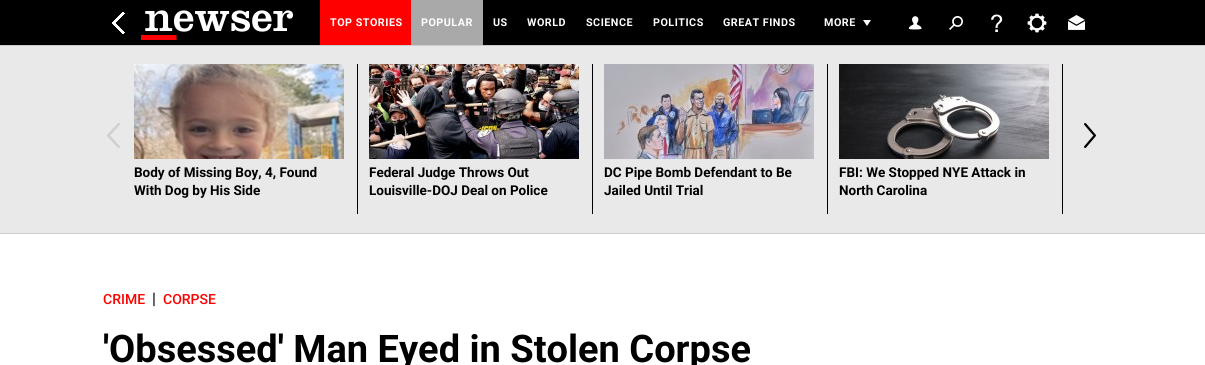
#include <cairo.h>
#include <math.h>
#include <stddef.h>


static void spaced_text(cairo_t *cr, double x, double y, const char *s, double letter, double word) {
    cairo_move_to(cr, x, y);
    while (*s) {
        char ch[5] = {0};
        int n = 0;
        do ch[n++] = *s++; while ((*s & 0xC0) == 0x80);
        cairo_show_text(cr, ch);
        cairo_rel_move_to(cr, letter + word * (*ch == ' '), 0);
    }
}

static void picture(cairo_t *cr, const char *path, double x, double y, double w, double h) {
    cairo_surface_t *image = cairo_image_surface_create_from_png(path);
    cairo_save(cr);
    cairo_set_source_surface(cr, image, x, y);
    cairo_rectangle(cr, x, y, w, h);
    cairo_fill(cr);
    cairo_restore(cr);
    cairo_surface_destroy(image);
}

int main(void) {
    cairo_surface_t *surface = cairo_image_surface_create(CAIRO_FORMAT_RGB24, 1205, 365);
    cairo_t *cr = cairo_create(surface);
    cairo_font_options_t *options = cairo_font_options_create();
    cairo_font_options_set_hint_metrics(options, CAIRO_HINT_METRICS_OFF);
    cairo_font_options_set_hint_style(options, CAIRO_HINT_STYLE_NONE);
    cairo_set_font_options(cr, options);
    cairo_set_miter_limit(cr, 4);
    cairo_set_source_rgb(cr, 1, 1, 1);
    cairo_paint(cr);
    cairo_set_source_rgb(cr, 0, 0, 0);
    cairo_rectangle(cr, 0, 0, 1205, 45);
    cairo_fill(cr);
    picture(cr, "img1.png", 112, 12, 13, 22);
    picture(cr, "img2.png", 141, 10, 153, 30);
    cairo_set_source_rgb(cr, 1, 0, 0);
    cairo_rectangle(cr, 320, 0, 91, 45);
    cairo_fill(cr);
    cairo_select_font_face(cr, "Roboto", CAIRO_FONT_SLANT_NORMAL, CAIRO_FONT_WEIGHT_BOLD);
    cairo_set_font_size(cr, 10.75);
    cairo_set_source_rgb(cr, 1, 1, 1);
    spaced_text(cr, 330, 26, "TOP STORIES", 0.5, 0);
    cairo_set_source_rgb(cr, 0.663, 0.663, 0.663);
    cairo_rectangle(cr, 411, 0, 72, 45);
    cairo_fill(cr);
    cairo_set_source_rgb(cr, 1, 1, 1);
    spaced_text(cr, 421, 26, "POPULAR", 0.5, 0);
    spaced_text(cr, 493, 26, "US", 0.5, 0);
    spaced_text(cr, 527, 26, "WORLD", 0.5, 0);
    spaced_text(cr, 586, 26, "SCIENCE", 0.5, 0);
    spaced_text(cr, 653, 26, "POLITICS", 0.5, 0);
    spaced_text(cr, 723, 26, "GREAT FINDS", 0.5, 0);
    cairo_set_fill_rule(cr, CAIRO_FILL_RULE_EVEN_ODD);
    cairo_new_path(cr);
    cairo_move_to(cr, 863, 20);
    cairo_line_to(cr, 867, 26);
    cairo_line_to(cr, 871, 20);
    cairo_close_path(cr);
    cairo_fill(cr);
    spaced_text(cr, 824, 26, "MORE", 0.5, 0);
    picture(cr, "img3.png", 908, 16, 14, 14);
    picture(cr, "img4.png", 949, 16, 14, 14);
    picture(cr, "img5.png", 991, 14, 12, 18);
    picture(cr, "img6.png", 1027, 13, 20, 20);
    picture(cr, "img7.png", 1068, 15, 17, 15);
    cairo_set_source_rgb(cr, 0.8, 0.8, 0.8);
    cairo_rectangle(cr, 0, 45, 1205, 1);
    cairo_fill(cr);
    cairo_set_source_rgb(cr, 0.914, 0.914, 0.914);
    cairo_rectangle(cr, 0, 46, 1205, 187);
    cairo_fill(cr);
    cairo_set_source_rgb(cr, 0.8, 0.8, 0.8);
    cairo_rectangle(cr, 0, 233, 1205, 1);
    cairo_fill(cr);
    picture(cr, "img8.png", 107, 123, 13, 25);
    picture(cr, "img9.png", 1084, 123, 12, 25);
    picture(cr, "img10.png", 134, 64, 210, 95);
    cairo_set_font_size(cr, 13.5);
    cairo_set_source_rgb(cr, 0, 0, 0);
    cairo_move_to(cr, 134, 177);
    cairo_show_text(cr, "Body of Missing Boy, 4, Found");
    cairo_move_to(cr, 134, 195);
    cairo_show_text(cr, "With Dog by His Side");
    cairo_rectangle(cr, 357, 64, 1, 150);
    cairo_fill(cr);
    picture(cr, "img11.png", 369, 64, 210, 95);
    cairo_move_to(cr, 369, 177);
    cairo_show_text(cr, "Federal Judge Throws Out");
    cairo_move_to(cr, 369, 195);
    cairo_show_text(cr, "Louisville-DOJ Deal on Police");
    cairo_rectangle(cr, 592, 64, 1, 150);
    cairo_fill(cr);
    picture(cr, "img12.png", 604, 64, 210, 95);
    cairo_move_to(cr, 604, 177);
    cairo_show_text(cr, "DC Pipe Bomb Defendant to Be");
    cairo_move_to(cr, 604, 195);
    cairo_show_text(cr, "Jailed Until Trial");
    cairo_rectangle(cr, 827, 64, 1, 150);
    cairo_fill(cr);
    picture(cr, "img13.png", 839, 64, 210, 95);
    cairo_move_to(cr, 839, 177);
    cairo_show_text(cr, "FBI: We Stopped NYE Attack in");
    cairo_move_to(cr, 839, 195);
    cairo_show_text(cr, "North Carolina");
    cairo_rectangle(cr, 1062, 64, 1, 150);
    cairo_fill(cr);
    cairo_select_font_face(cr, "Roboto Medium", CAIRO_FONT_SLANT_NORMAL, CAIRO_FONT_WEIGHT_NORMAL);
    cairo_set_font_size(cr, 14);
    cairo_set_source_rgb(cr, 1, 0, 0);
    cairo_move_to(cr, 103, 304);
    cairo_show_text(cr, "CRIME");
    cairo_select_font_face(cr, "Roboto", CAIRO_FONT_SLANT_NORMAL, CAIRO_FONT_WEIGHT_NORMAL);
    cairo_set_font_size(cr, 16);
    cairo_set_source_rgb(cr, 0, 0, 0);
    cairo_move_to(cr, 152, 304);
    cairo_show_text(cr, "|");
    cairo_select_font_face(cr, "Roboto Medium", CAIRO_FONT_SLANT_NORMAL, CAIRO_FONT_WEIGHT_NORMAL);
    cairo_set_font_size(cr, 14);
    cairo_set_source_rgb(cr, 1, 0, 0);
    cairo_move_to(cr, 163, 304);
    cairo_show_text(cr, "CORPSE");
    cairo_select_font_face(cr, "Roboto", CAIRO_FONT_SLANT_NORMAL, CAIRO_FONT_WEIGHT_BOLD);
    cairo_set_font_size(cr, 38);
    cairo_set_source_rgb(cr, 0, 0, 0);
    cairo_move_to(cr, 103, 362);
    cairo_show_text(cr, "'Obsessed' Man Eyed in Stolen Corpse");
    cairo_surface_write_to_png(surface, "page.png");
    cairo_font_options_destroy(options);
    cairo_destroy(cr);
    cairo_surface_destroy(surface);
    return 0;
}
